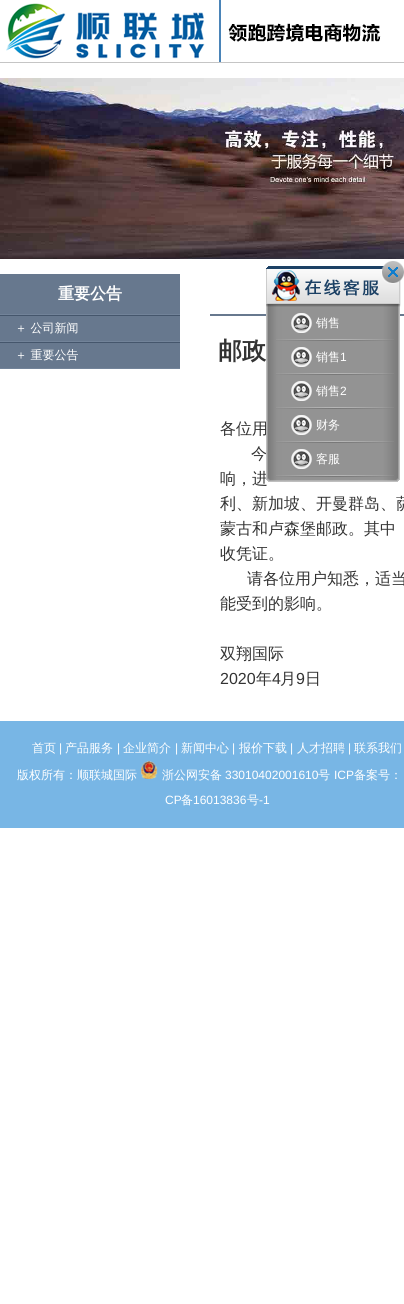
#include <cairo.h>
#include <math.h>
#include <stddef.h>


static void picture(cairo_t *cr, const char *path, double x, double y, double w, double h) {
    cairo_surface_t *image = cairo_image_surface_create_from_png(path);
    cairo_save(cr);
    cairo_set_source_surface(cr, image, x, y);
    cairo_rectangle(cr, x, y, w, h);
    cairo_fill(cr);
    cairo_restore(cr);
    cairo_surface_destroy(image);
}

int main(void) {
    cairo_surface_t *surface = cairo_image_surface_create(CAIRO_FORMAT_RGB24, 404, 1304);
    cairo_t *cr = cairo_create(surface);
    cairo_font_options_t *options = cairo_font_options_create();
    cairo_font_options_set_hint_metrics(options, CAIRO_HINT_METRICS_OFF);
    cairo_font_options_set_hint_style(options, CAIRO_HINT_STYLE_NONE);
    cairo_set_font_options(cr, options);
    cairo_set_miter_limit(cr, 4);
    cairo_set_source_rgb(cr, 1, 1, 1);
    cairo_paint(cr);
    cairo_set_source_rgb(cr, 0.773, 0.773, 0.773);
    cairo_rectangle(cr, 0, 62, 404, 1);
    cairo_fill(cr);
    picture(cr, "img1.png", 6, 0, 375, 62);
    picture(cr, "img2.png", 0, 78, 404, 181);
    cairo_set_source_rgb(cr, 0.404, 0.471, 0.557);
    cairo_rectangle(cr, 0, 274, 180, 94);
    cairo_fill(cr);
    cairo_set_source_rgb(cr, 0.447, 0.514, 0.6);
    cairo_rectangle(cr, 0, 314, 180, 1);
    cairo_fill(cr);
    cairo_select_font_face(cr, "WenQuanYi Zen Hei", CAIRO_FONT_SLANT_NORMAL, CAIRO_FONT_WEIGHT_BOLD);
    cairo_set_font_size(cr, 16);
    cairo_set_source_rgb(cr, 1, 1, 1);
    cairo_move_to(cr, 58, 299);
    cairo_show_text(cr, "重要公告");
    cairo_set_source_rgb(cr, 0.271, 0.337, 0.424);
    cairo_rectangle(cr, 0, 315, 180, 1);
    cairo_fill(cr);
    cairo_set_source_rgb(cr, 0.447, 0.514, 0.6);
    cairo_rectangle(cr, 0, 341, 180, 1);
    cairo_fill(cr);
    cairo_select_font_face(cr, "WenQuanYi Zen Hei Medium", CAIRO_FONT_SLANT_NORMAL, CAIRO_FONT_WEIGHT_NORMAL);
    cairo_set_font_size(cr, 12);
    cairo_set_source_rgb(cr, 1, 1, 1);
    cairo_move_to(cr, 15, 332);
    cairo_show_text(cr, "＋ 公司新闻");
    cairo_set_source_rgb(cr, 0.271, 0.337, 0.424);
    cairo_rectangle(cr, 0, 342, 180, 1);
    cairo_fill(cr);
    cairo_set_source_rgb(cr, 0.447, 0.514, 0.6);
    cairo_rectangle(cr, 0, 368, 180, 1);
    cairo_fill(cr);
    cairo_set_source_rgb(cr, 1, 1, 1);
    cairo_move_to(cr, 15, 359);
    cairo_show_text(cr, "＋ 重要公告");
    cairo_set_source_rgb(cr, 0.404, 0.471, 0.557);
    cairo_rectangle(cr, 210, 314, 194, 2);
    cairo_fill(cr);
    cairo_select_font_face(cr, "WenQuanYi Zen Hei", CAIRO_FONT_SLANT_NORMAL, CAIRO_FONT_WEIGHT_BOLD);
    cairo_set_font_size(cr, 24);
    cairo_set_source_rgb(cr, 0.2, 0.2, 0.2);
    cairo_move_to(cr, 218, 359);
    cairo_show_text(cr, "邮政");
    cairo_select_font_face(cr, "WenQuanYi Zen Hei Medium", CAIRO_FONT_SLANT_NORMAL, CAIRO_FONT_WEIGHT_NORMAL);
    cairo_set_font_size(cr, 16);
    cairo_move_to(cr, 220, 434);
    cairo_show_text(cr, "各位用");
    cairo_move_to(cr, 251, 459);
    cairo_show_text(cr, "今");
    cairo_move_to(cr, 220, 484);
    cairo_show_text(cr, "响，进");
    cairo_move_to(cr, 220, 509);
    cairo_show_text(cr, "利、新加坡、开曼群岛、萨");
    cairo_move_to(cr, 220, 534);
    cairo_show_text(cr, "蒙古和卢森堡邮政。其中");
    cairo_move_to(cr, 220, 559);
    cairo_show_text(cr, "收凭证。");
    cairo_move_to(cr, 247, 584);
    cairo_show_text(cr, "请各位用户知悉，适当");
    cairo_move_to(cr, 220, 609);
    cairo_show_text(cr, "能受到的影响。");
    cairo_move_to(cr, 220, 659);
    cairo_show_text(cr, "双翔国际");
    cairo_select_font_face(cr, "Liberation Sans", CAIRO_FONT_SLANT_NORMAL, CAIRO_FONT_WEIGHT_NORMAL);
    cairo_move_to(cr, 220, 684);
    cairo_show_text(cr, "2020");
    cairo_select_font_face(cr, "WenQuanYi Zen Hei Medium", CAIRO_FONT_SLANT_NORMAL, CAIRO_FONT_WEIGHT_NORMAL);
    cairo_move_to(cr, 256, 684);
    cairo_show_text(cr, "年");
    cairo_select_font_face(cr, "Liberation Sans", CAIRO_FONT_SLANT_NORMAL, CAIRO_FONT_WEIGHT_NORMAL);
    cairo_move_to(cr, 272, 684);
    cairo_show_text(cr, "4");
    cairo_select_font_face(cr, "WenQuanYi Zen Hei Medium", CAIRO_FONT_SLANT_NORMAL, CAIRO_FONT_WEIGHT_NORMAL);
    cairo_move_to(cr, 280, 684);
    cairo_show_text(cr, "月");
    cairo_select_font_face(cr, "Liberation Sans", CAIRO_FONT_SLANT_NORMAL, CAIRO_FONT_WEIGHT_NORMAL);
    cairo_move_to(cr, 296, 684);
    cairo_show_text(cr, "9");
    cairo_select_font_face(cr, "WenQuanYi Zen Hei Medium", CAIRO_FONT_SLANT_NORMAL, CAIRO_FONT_WEIGHT_NORMAL);
    cairo_move_to(cr, 305, 684);
    cairo_show_text(cr, "日");
    picture(cr, "img3.png", 266, 261, 138, 46);
    picture(cr, "img4.png", 266, 477, 134, 5);
    picture(cr, "img5.png", 266, 307, 134, 170);
    picture(cr, "img6.png", 276, 339, 118, 2);
    picture(cr, "img7.png", 291, 313, 21, 20);
    cairo_set_font_size(cr, 12);
    cairo_set_source_rgb(cr, 1, 1, 1);
    cairo_move_to(cr, 316, 327);
    cairo_show_text(cr, "销售");
    picture(cr, "img6.png", 276, 373, 118, 2);
    picture(cr, "img7.png", 291, 347, 21, 20);
    cairo_move_to(cr, 316, 361);
    cairo_show_text(cr, "销售");
    cairo_select_font_face(cr, "Liberation Sans", CAIRO_FONT_SLANT_NORMAL, CAIRO_FONT_WEIGHT_NORMAL);
    cairo_move_to(cr, 340, 361);
    cairo_show_text(cr, "1");
    picture(cr, "img6.png", 276, 407, 118, 2);
    picture(cr, "img7.png", 291, 381, 21, 20);
    cairo_select_font_face(cr, "WenQuanYi Zen Hei Medium", CAIRO_FONT_SLANT_NORMAL, CAIRO_FONT_WEIGHT_NORMAL);
    cairo_move_to(cr, 316, 395);
    cairo_show_text(cr, "销售");
    cairo_select_font_face(cr, "Liberation Sans", CAIRO_FONT_SLANT_NORMAL, CAIRO_FONT_WEIGHT_NORMAL);
    cairo_move_to(cr, 340, 395);
    cairo_show_text(cr, "2");
    picture(cr, "img6.png", 276, 441, 118, 2);
    picture(cr, "img7.png", 291, 415, 21, 20);
    cairo_select_font_face(cr, "WenQuanYi Zen Hei Medium", CAIRO_FONT_SLANT_NORMAL, CAIRO_FONT_WEIGHT_NORMAL);
    cairo_move_to(cr, 316, 429);
    cairo_show_text(cr, "财务");
    picture(cr, "img6.png", 276, 475, 118, 2);
    picture(cr, "img7.png", 291, 449, 21, 20);
    cairo_move_to(cr, 316, 463);
    cairo_show_text(cr, "客服");
    cairo_set_source_rgb(cr, 0.471, 0.714, 0.898);
    cairo_rectangle(cr, 0, 721, 404, 107);
    cairo_fill(cr);
    cairo_set_source_rgb(cr, 1, 1, 1);
    cairo_move_to(cr, 32, 752);
    cairo_show_text(cr, "首页");
    cairo_select_font_face(cr, "Liberation Sans", CAIRO_FONT_SLANT_NORMAL, CAIRO_FONT_WEIGHT_NORMAL);
    cairo_move_to(cr, 59, 752);
    cairo_show_text(cr, "|");
    cairo_select_font_face(cr, "WenQuanYi Zen Hei Medium", CAIRO_FONT_SLANT_NORMAL, CAIRO_FONT_WEIGHT_NORMAL);
    cairo_move_to(cr, 65, 752);
    cairo_show_text(cr, "产品服务");
    cairo_select_font_face(cr, "Liberation Sans", CAIRO_FONT_SLANT_NORMAL, CAIRO_FONT_WEIGHT_NORMAL);
    cairo_move_to(cr, 117, 752);
    cairo_show_text(cr, "|");
    cairo_select_font_face(cr, "WenQuanYi Zen Hei Medium", CAIRO_FONT_SLANT_NORMAL, CAIRO_FONT_WEIGHT_NORMAL);
    cairo_move_to(cr, 123, 752);
    cairo_show_text(cr, "企业简介");
    cairo_select_font_face(cr, "Liberation Sans", CAIRO_FONT_SLANT_NORMAL, CAIRO_FONT_WEIGHT_NORMAL);
    cairo_move_to(cr, 175, 752);
    cairo_show_text(cr, "|");
    cairo_select_font_face(cr, "WenQuanYi Zen Hei Medium", CAIRO_FONT_SLANT_NORMAL, CAIRO_FONT_WEIGHT_NORMAL);
    cairo_move_to(cr, 181, 752);
    cairo_show_text(cr, "新闻中心");
    cairo_select_font_face(cr, "Liberation Sans", CAIRO_FONT_SLANT_NORMAL, CAIRO_FONT_WEIGHT_NORMAL);
    cairo_move_to(cr, 232, 752);
    cairo_show_text(cr, "|");
    cairo_select_font_face(cr, "WenQuanYi Zen Hei Medium", CAIRO_FONT_SLANT_NORMAL, CAIRO_FONT_WEIGHT_NORMAL);
    cairo_move_to(cr, 239, 752);
    cairo_show_text(cr, "报价下载");
    cairo_select_font_face(cr, "Liberation Sans", CAIRO_FONT_SLANT_NORMAL, CAIRO_FONT_WEIGHT_NORMAL);
    cairo_move_to(cr, 290, 752);
    cairo_show_text(cr, "|");
    cairo_select_font_face(cr, "WenQuanYi Zen Hei Medium", CAIRO_FONT_SLANT_NORMAL, CAIRO_FONT_WEIGHT_NORMAL);
    cairo_move_to(cr, 297, 752);
    cairo_show_text(cr, "人才招聘");
    cairo_select_font_face(cr, "Liberation Sans", CAIRO_FONT_SLANT_NORMAL, CAIRO_FONT_WEIGHT_NORMAL);
    cairo_move_to(cr, 348, 752);
    cairo_show_text(cr, "|");
    cairo_select_font_face(cr, "WenQuanYi Zen Hei Medium", CAIRO_FONT_SLANT_NORMAL, CAIRO_FONT_WEIGHT_NORMAL);
    cairo_move_to(cr, 354, 752);
    cairo_show_text(cr, "联系我们");
    cairo_move_to(cr, 17, 779);
    cairo_show_text(cr, "版权所有：顺联城国际");
    picture(cr, "img8.png", 140, 761, 18, 18);
    cairo_move_to(cr, 162, 779);
    cairo_show_text(cr, "浙公网安备");
    cairo_select_font_face(cr, "Liberation Sans", CAIRO_FONT_SLANT_NORMAL, CAIRO_FONT_WEIGHT_NORMAL);
    cairo_move_to(cr, 225, 779);
    cairo_show_text(cr, "33010402001610");
    cairo_select_font_face(cr, "WenQuanYi Zen Hei Medium", CAIRO_FONT_SLANT_NORMAL, CAIRO_FONT_WEIGHT_NORMAL);
    cairo_move_to(cr, 318, 779);
    cairo_show_text(cr, "号");
    cairo_select_font_face(cr, "Liberation Sans", CAIRO_FONT_SLANT_NORMAL, CAIRO_FONT_WEIGHT_NORMAL);
    cairo_move_to(cr, 334, 779);
    cairo_show_text(cr, "ICP");
    cairo_select_font_face(cr, "WenQuanYi Zen Hei Medium", CAIRO_FONT_SLANT_NORMAL, CAIRO_FONT_WEIGHT_NORMAL);
    cairo_move_to(cr, 354, 779);
    cairo_show_text(cr, "备案号：");
    cairo_select_font_face(cr, "Liberation Sans", CAIRO_FONT_SLANT_NORMAL, CAIRO_FONT_WEIGHT_NORMAL);
    cairo_move_to(cr, 165, 804);
    cairo_show_text(cr, "CP");
    cairo_select_font_face(cr, "WenQuanYi Zen Hei Medium", CAIRO_FONT_SLANT_NORMAL, CAIRO_FONT_WEIGHT_NORMAL);
    cairo_move_to(cr, 181, 804);
    cairo_show_text(cr, "备");
    cairo_select_font_face(cr, "Liberation Sans", CAIRO_FONT_SLANT_NORMAL, CAIRO_FONT_WEIGHT_NORMAL);
    cairo_move_to(cr, 193, 804);
    cairo_show_text(cr, "16013836");
    cairo_select_font_face(cr, "WenQuanYi Zen Hei Medium", CAIRO_FONT_SLANT_NORMAL, CAIRO_FONT_WEIGHT_NORMAL);
    cairo_move_to(cr, 247, 804);
    cairo_show_text(cr, "号");
    cairo_select_font_face(cr, "Liberation Sans", CAIRO_FONT_SLANT_NORMAL, CAIRO_FONT_WEIGHT_NORMAL);
    cairo_move_to(cr, 259, 804);
    cairo_show_text(cr, "-1");
    cairo_surface_write_to_png(surface, "page.png");
    cairo_font_options_destroy(options);
    cairo_destroy(cr);
    cairo_surface_destroy(surface);
    return 0;
}
